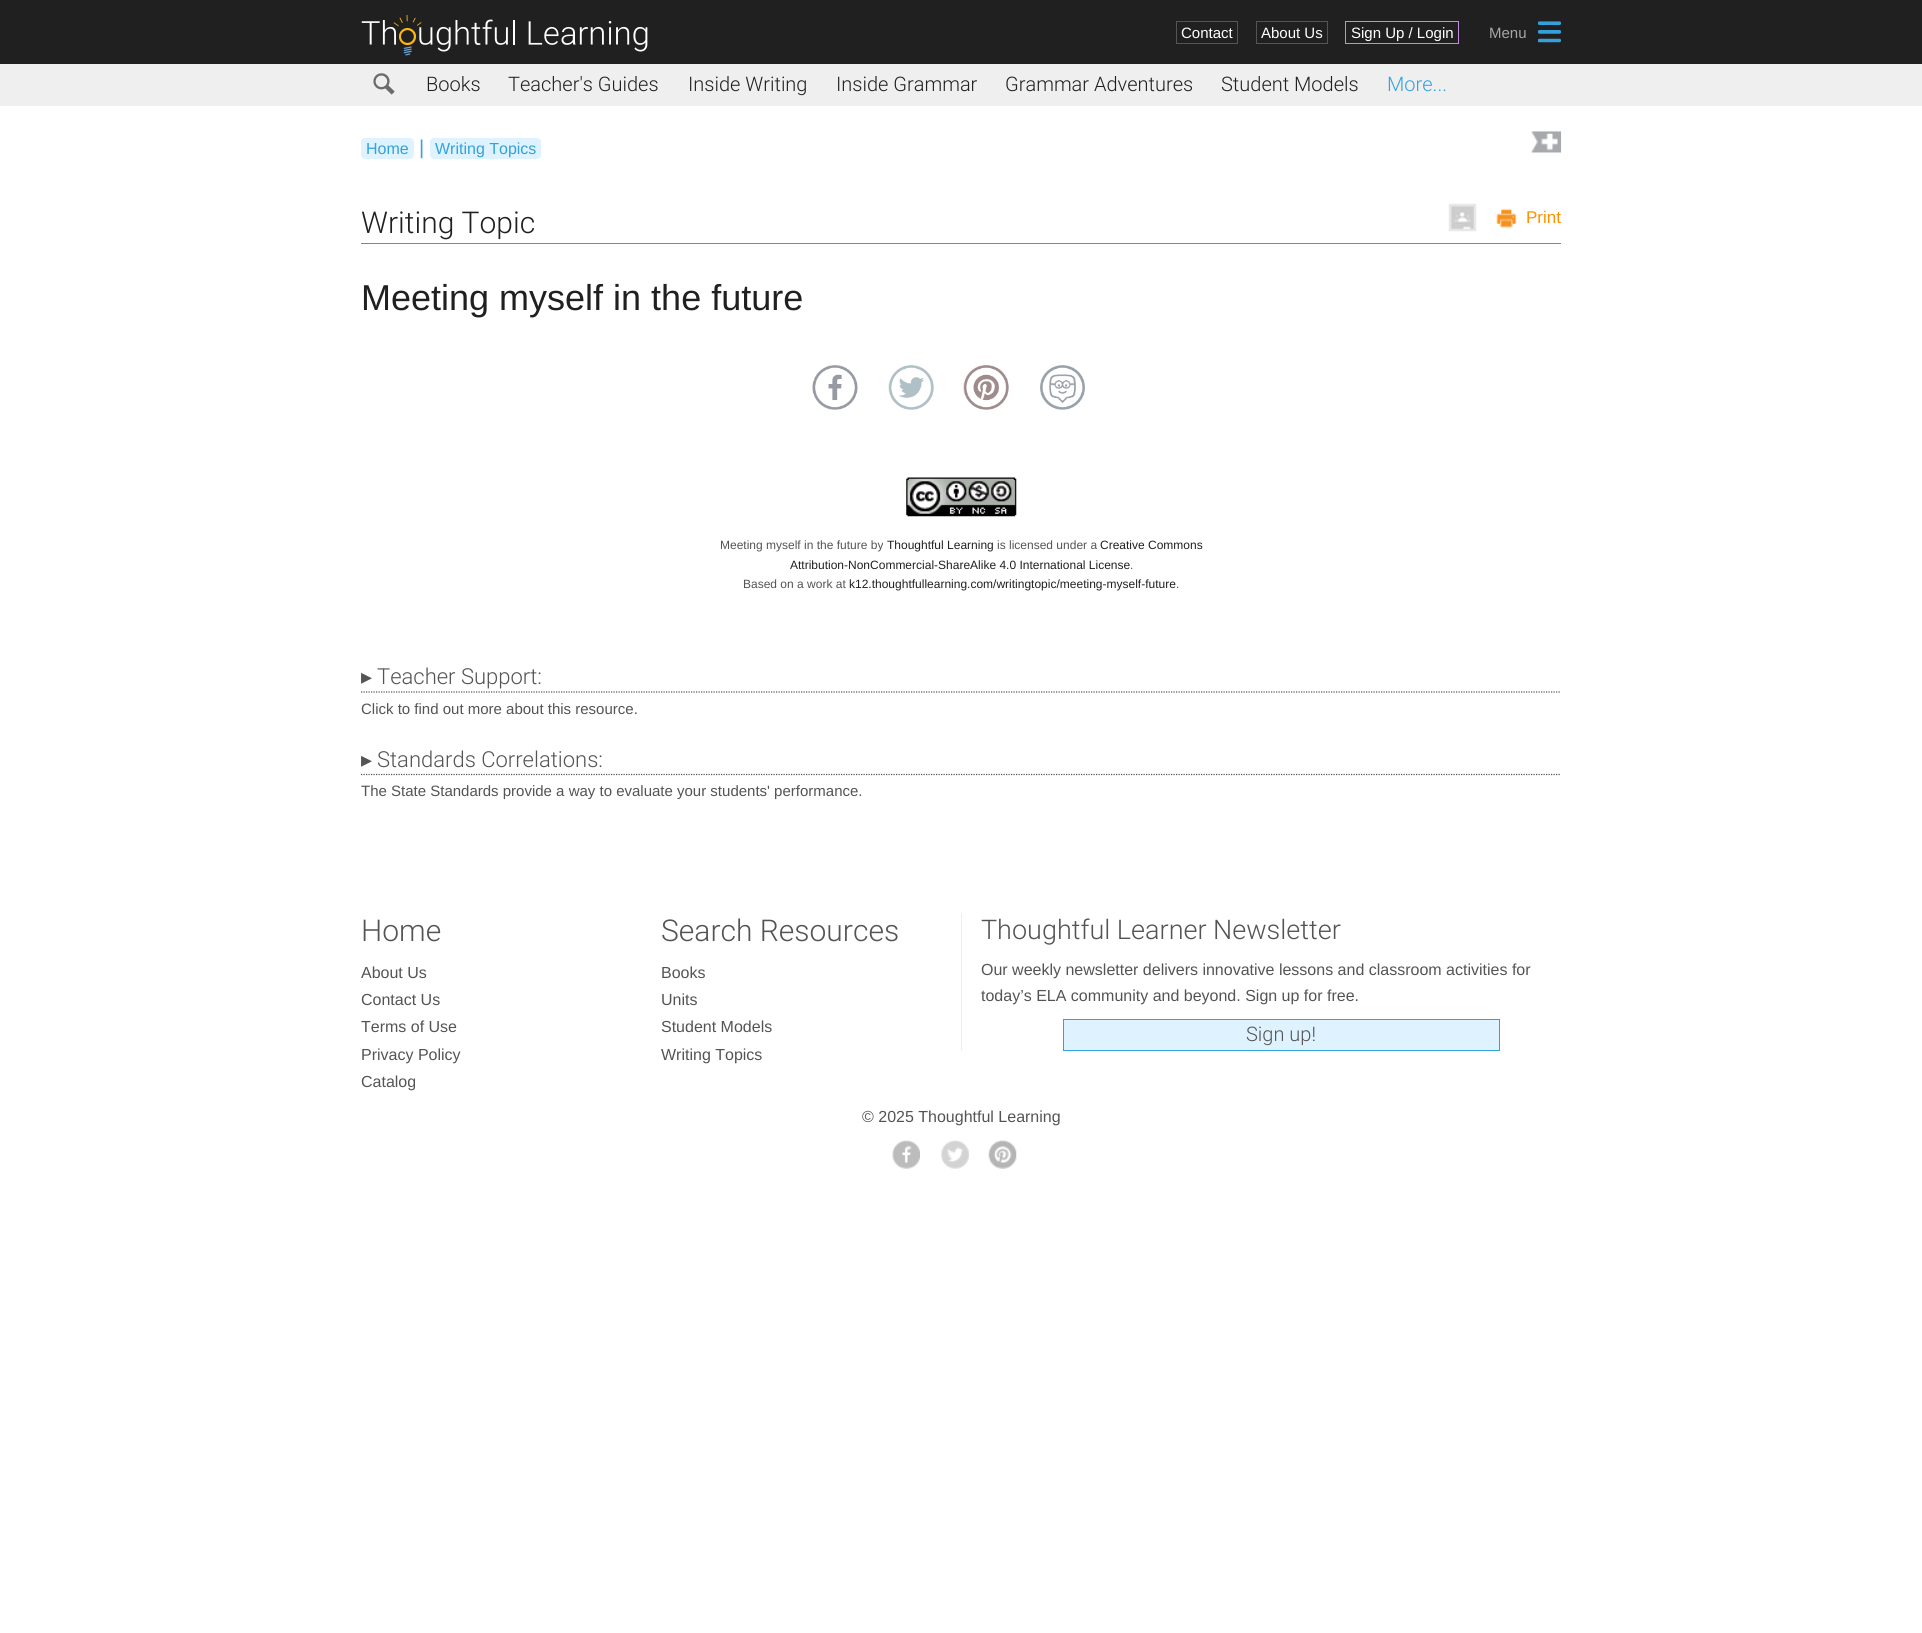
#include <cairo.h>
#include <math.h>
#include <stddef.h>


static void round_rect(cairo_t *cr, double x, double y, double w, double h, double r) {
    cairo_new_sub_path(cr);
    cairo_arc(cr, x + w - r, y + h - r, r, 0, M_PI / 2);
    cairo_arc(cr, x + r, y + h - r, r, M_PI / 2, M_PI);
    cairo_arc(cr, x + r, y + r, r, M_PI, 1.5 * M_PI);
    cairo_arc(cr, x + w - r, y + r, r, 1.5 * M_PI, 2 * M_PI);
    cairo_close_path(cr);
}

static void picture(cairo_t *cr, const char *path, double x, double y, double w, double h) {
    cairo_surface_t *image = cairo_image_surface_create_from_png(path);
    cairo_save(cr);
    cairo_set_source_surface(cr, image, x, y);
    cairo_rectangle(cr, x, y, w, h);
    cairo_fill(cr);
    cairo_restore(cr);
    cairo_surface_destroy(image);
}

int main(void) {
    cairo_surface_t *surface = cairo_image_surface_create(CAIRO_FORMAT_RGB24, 1922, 1633);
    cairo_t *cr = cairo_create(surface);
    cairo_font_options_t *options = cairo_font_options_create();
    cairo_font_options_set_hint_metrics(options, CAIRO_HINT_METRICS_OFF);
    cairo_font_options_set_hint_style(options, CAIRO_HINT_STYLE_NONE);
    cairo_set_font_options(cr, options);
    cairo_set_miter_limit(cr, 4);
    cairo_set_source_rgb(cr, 1, 1, 1);
    cairo_paint(cr);
    cairo_set_source_rgb(cr, 0.125, 0.125, 0.125);
    cairo_rectangle(cr, 0, 0, 1922, 64);
    cairo_fill(cr);
    picture(cr, "img1.png", 361, 15, 287, 41);
    cairo_rectangle(cr, 1176.5, 21.5, 61, 22);
    cairo_set_source_rgb(cr, 0.329, 0.329, 0.329);
    cairo_set_line_width(cr, 1);
    cairo_stroke(cr);
    cairo_select_font_face(cr, "Liberation Sans", CAIRO_FONT_SLANT_NORMAL, CAIRO_FONT_WEIGHT_NORMAL);
    cairo_set_font_size(cr, 15);
    cairo_set_source_rgb(cr, 1, 1, 1);
    cairo_move_to(cr, 1181, 38);
    cairo_show_text(cr, "Contact");
    cairo_rectangle(cr, 1256.5, 21.5, 71, 22);
    cairo_set_source_rgb(cr, 0.329, 0.329, 0.329);
    cairo_stroke(cr);
    cairo_set_source_rgb(cr, 1, 1, 1);
    cairo_move_to(cr, 1261, 38);
    cairo_show_text(cr, "About Us");
    cairo_rectangle(cr, 1345.5, 21.5, 113, 22);
    cairo_set_source_rgb(cr, 0.765, 0.549, 0.867);
    cairo_stroke(cr);
    cairo_set_source_rgb(cr, 1, 1, 1);
    cairo_move_to(cr, 1351, 38);
    cairo_show_text(cr, "Sign Up / Login");
    picture(cr, "img2.png", 1538, 21, 23, 22);
    cairo_set_source_rgb(cr, 0.651, 0.651, 0.651);
    cairo_move_to(cr, 1489, 38);
    cairo_show_text(cr, "Menu");
    cairo_set_source_rgb(cr, 0.937, 0.937, 0.937);
    cairo_rectangle(cr, 0, 64, 1922, 42);
    cairo_fill(cr);
    picture(cr, "img3.png", 373, 73, 22, 22);
    cairo_select_font_face(cr, "Roboto Light", CAIRO_FONT_SLANT_NORMAL, CAIRO_FONT_WEIGHT_NORMAL);
    cairo_set_font_size(cr, 20);
    cairo_set_source_rgb(cr, 0.125, 0.125, 0.125);
    cairo_move_to(cr, 426, 91);
    cairo_show_text(cr, "Books");
    cairo_move_to(cr, 508, 91);
    cairo_show_text(cr, "Teacher's Guides");
    cairo_move_to(cr, 688, 91);
    cairo_show_text(cr, "Inside Writing");
    cairo_move_to(cr, 836, 91);
    cairo_show_text(cr, "Inside Grammar");
    cairo_move_to(cr, 1005, 91);
    cairo_show_text(cr, "Grammar Adventures");
    cairo_move_to(cr, 1221, 91);
    cairo_show_text(cr, "Student Models");
    cairo_set_source_rgb(cr, 0.196, 0.635, 0.859);
    cairo_move_to(cr, 1387, 91);
    cairo_show_text(cr, "More...");
    cairo_set_source_rgb(cr, 0.871, 0.953, 1);
    round_rect(cr, 361, 138, 53, 21, 4);
    cairo_fill(cr);
    cairo_select_font_face(cr, "Liberation Sans", CAIRO_FONT_SLANT_NORMAL, CAIRO_FONT_WEIGHT_NORMAL);
    cairo_set_font_size(cr, 16);
    cairo_set_source_rgb(cr, 0.196, 0.635, 0.859);
    cairo_move_to(cr, 366, 154);
    cairo_show_text(cr, "Home");
    cairo_set_font_size(cr, 20);
    cairo_move_to(cr, 419, 154);
    cairo_show_text(cr, "|");
    cairo_set_source_rgb(cr, 0.871, 0.953, 1);
    round_rect(cr, 430, 138, 111, 21, 4);
    cairo_fill(cr);
    cairo_set_font_size(cr, 16);
    cairo_set_source_rgb(cr, 0.196, 0.635, 0.859);
    cairo_move_to(cr, 435, 154);
    cairo_show_text(cr, "Writing Topics");
    picture(cr, "img4.png", 1531, 131, 31, 22);
    cairo_rectangle(cr, 361, 243, 1200, 1);
    cairo_fill(cr);
    cairo_select_font_face(cr, "Roboto Light", CAIRO_FONT_SLANT_NORMAL, CAIRO_FONT_WEIGHT_NORMAL);
    cairo_set_font_size(cr, 30);
    cairo_set_source_rgb(cr, 0.125, 0.125, 0.125);
    cairo_move_to(cr, 361, 233);
    cairo_show_text(cr, "Writing Topic");
    picture(cr, "img5.png", 1448, 203, 29, 29);
    picture(cr, "img6.png", 1496, 208, 21, 20);
    cairo_select_font_face(cr, "Liberation Sans", CAIRO_FONT_SLANT_NORMAL, CAIRO_FONT_WEIGHT_NORMAL);
    cairo_set_font_size(cr, 17);
    cairo_set_source_rgb(cr, 1, 0.569, 0);
    cairo_move_to(cr, 1526, 223);
    cairo_show_text(cr, "Print");
    cairo_set_font_size(cr, 36);
    cairo_set_source_rgb(cr, 0.125, 0.125, 0.125);
    cairo_move_to(cr, 361, 310);
    cairo_show_text(cr, "Meeting myself in the future");
    picture(cr, "img7.png", 812, 365, 46, 45);
    picture(cr, "img8.png", 888, 365, 46, 45);
    picture(cr, "img9.png", 963, 365, 46, 45);
    picture(cr, "img10.png", 1040, 365, 45, 45);
    picture(cr, "img11.png", 906, 477, 111, 40);
    cairo_set_font_size(cr, 12);
    cairo_set_source_rgb(cr, 0.329, 0.329, 0.329);
    cairo_move_to(cr, 720, 549);
    cairo_show_text(cr, "Meeting myself in the future by");
    cairo_set_source_rgb(cr, 0.125, 0.125, 0.125);
    cairo_move_to(cr, 887, 549);
    cairo_show_text(cr, "Thoughtful Learning");
    cairo_set_source_rgb(cr, 0.329, 0.329, 0.329);
    cairo_move_to(cr, 997, 549);
    cairo_show_text(cr, "is licensed under a");
    cairo_set_source_rgb(cr, 0.125, 0.125, 0.125);
    cairo_move_to(cr, 1100, 549);
    cairo_show_text(cr, "Creative Commons");
    cairo_move_to(cr, 790, 569);
    cairo_show_text(cr, "Attribution-NonCommercial-ShareAlike 4.0 International License");
    cairo_set_source_rgb(cr, 0.329, 0.329, 0.329);
    cairo_move_to(cr, 1130, 569);
    cairo_show_text(cr, ".");
    cairo_move_to(cr, 743, 588);
    cairo_show_text(cr, "Based on a work at");
    cairo_set_source_rgb(cr, 0.125, 0.125, 0.125);
    cairo_move_to(cr, 849, 588);
    cairo_show_text(cr, "k12.thoughtfullearning.com/writingtopic/meeting-myself-future");
    cairo_set_source_rgb(cr, 0.329, 0.329, 0.329);
    cairo_move_to(cr, 1176, 588);
    cairo_show_text(cr, ".");
    cairo_new_path(cr);
    cairo_move_to(cr, 361, 692);
    cairo_line_to(cr, 1561, 692);
    cairo_set_line_width(cr, 1.2);
    cairo_set_dash(cr, (double[]){1.25, 1.25}, 2, 0);
    cairo_stroke(cr);
    cairo_select_font_face(cr, "DejaVu Sans", CAIRO_FONT_SLANT_NORMAL, CAIRO_FONT_WEIGHT_NORMAL);
    cairo_set_font_size(cr, 22);
    cairo_move_to(cr, 361, 684);
    cairo_show_text(cr, "▸");
    cairo_select_font_face(cr, "Roboto Light", CAIRO_FONT_SLANT_NORMAL, CAIRO_FONT_WEIGHT_NORMAL);
    cairo_move_to(cr, 377, 684);
    cairo_show_text(cr, "Teacher Support:");
    cairo_select_font_face(cr, "Liberation Sans", CAIRO_FONT_SLANT_NORMAL, CAIRO_FONT_WEIGHT_NORMAL);
    cairo_set_font_size(cr, 15);
    cairo_move_to(cr, 361, 714);
    cairo_show_text(cr, "Click to find out more about this resource.");
    cairo_new_path(cr);
    cairo_move_to(cr, 361, 774.5);
    cairo_line_to(cr, 1561, 774.5);
    cairo_stroke(cr);
    cairo_select_font_face(cr, "DejaVu Sans", CAIRO_FONT_SLANT_NORMAL, CAIRO_FONT_WEIGHT_NORMAL);
    cairo_set_font_size(cr, 22);
    cairo_move_to(cr, 361, 767);
    cairo_show_text(cr, "▸");
    cairo_select_font_face(cr, "Roboto Light", CAIRO_FONT_SLANT_NORMAL, CAIRO_FONT_WEIGHT_NORMAL);
    cairo_move_to(cr, 377, 767);
    cairo_show_text(cr, "Standards Correlations:");
    cairo_select_font_face(cr, "Liberation Sans", CAIRO_FONT_SLANT_NORMAL, CAIRO_FONT_WEIGHT_NORMAL);
    cairo_set_font_size(cr, 15);
    cairo_move_to(cr, 361, 796);
    cairo_show_text(cr, "The State Standards provide a way to evaluate your students' performance.");
    cairo_select_font_face(cr, "Roboto Light", CAIRO_FONT_SLANT_NORMAL, CAIRO_FONT_WEIGHT_NORMAL);
    cairo_set_font_size(cr, 30);
    cairo_move_to(cr, 361, 941);
    cairo_show_text(cr, "Home");
    cairo_select_font_face(cr, "Liberation Sans", CAIRO_FONT_SLANT_NORMAL, CAIRO_FONT_WEIGHT_NORMAL);
    cairo_set_font_size(cr, 16);
    cairo_move_to(cr, 361, 978);
    cairo_show_text(cr, "About Us");
    cairo_move_to(cr, 361, 1005);
    cairo_show_text(cr, "Contact Us");
    cairo_move_to(cr, 361, 1032);
    cairo_show_text(cr, "Terms of Use");
    cairo_move_to(cr, 361, 1060);
    cairo_show_text(cr, "Privacy Policy");
    cairo_move_to(cr, 361, 1087);
    cairo_show_text(cr, "Catalog");
    cairo_select_font_face(cr, "Roboto Light", CAIRO_FONT_SLANT_NORMAL, CAIRO_FONT_WEIGHT_NORMAL);
    cairo_set_font_size(cr, 30);
    cairo_move_to(cr, 661, 941);
    cairo_show_text(cr, "Search Resources");
    cairo_select_font_face(cr, "Liberation Sans", CAIRO_FONT_SLANT_NORMAL, CAIRO_FONT_WEIGHT_NORMAL);
    cairo_set_font_size(cr, 16);
    cairo_move_to(cr, 661, 978);
    cairo_show_text(cr, "Books");
    cairo_move_to(cr, 661, 1005);
    cairo_show_text(cr, "Units");
    cairo_move_to(cr, 661, 1032);
    cairo_show_text(cr, "Student Models");
    cairo_move_to(cr, 661, 1060);
    cairo_show_text(cr, "Writing Topics");
    cairo_set_source_rgb(cr, 0.937, 0.937, 0.937);
    cairo_rectangle(cr, 961, 913, 1, 138);
    cairo_fill(cr);
    cairo_select_font_face(cr, "Roboto Light", CAIRO_FONT_SLANT_NORMAL, CAIRO_FONT_WEIGHT_NORMAL);
    cairo_set_font_size(cr, 27);
    cairo_set_source_rgb(cr, 0.329, 0.329, 0.329);
    cairo_move_to(cr, 981, 939);
    cairo_show_text(cr, "Thoughtful Learner Newsletter");
    cairo_select_font_face(cr, "Liberation Sans", CAIRO_FONT_SLANT_NORMAL, CAIRO_FONT_WEIGHT_NORMAL);
    cairo_set_font_size(cr, 16);
    cairo_move_to(cr, 981, 975);
    cairo_show_text(cr, "Our weekly newsletter delivers innovative lessons and classroom activities for");
    cairo_move_to(cr, 981, 1001);
    cairo_show_text(cr, "today’s ELA community and beyond. Sign up for free.");
    cairo_set_source_rgb(cr, 0.871, 0.953, 1);
    cairo_rectangle(cr, 1063.5, 1019.5, 436, 31);
    cairo_fill_preserve(cr);
    cairo_set_source_rgb(cr, 0.196, 0.635, 0.859);
    cairo_set_line_width(cr, 1);
    cairo_set_dash(cr, NULL, 0, 0);
    cairo_stroke(cr);
    cairo_select_font_face(cr, "Roboto Light", CAIRO_FONT_SLANT_NORMAL, CAIRO_FONT_WEIGHT_NORMAL);
    cairo_set_font_size(cr, 20);
    cairo_set_source_rgb(cr, 0.329, 0.329, 0.329);
    cairo_move_to(cr, 1246, 1041);
    cairo_show_text(cr, "Sign up!");
    cairo_select_font_face(cr, "Liberation Sans", CAIRO_FONT_SLANT_NORMAL, CAIRO_FONT_WEIGHT_NORMAL);
    cairo_set_font_size(cr, 16);
    cairo_move_to(cr, 862, 1122);
    cairo_show_text(cr, "© 2025 Thoughtful Learning");
    picture(cr, "img12.png", 892, 1140, 28, 29);
    picture(cr, "img13.png", 941, 1140, 28, 29);
    picture(cr, "img14.png", 988, 1140, 29, 29);
    cairo_surface_write_to_png(surface, "page.png");
    cairo_font_options_destroy(options);
    cairo_destroy(cr);
    cairo_surface_destroy(surface);
    return 0;
}
